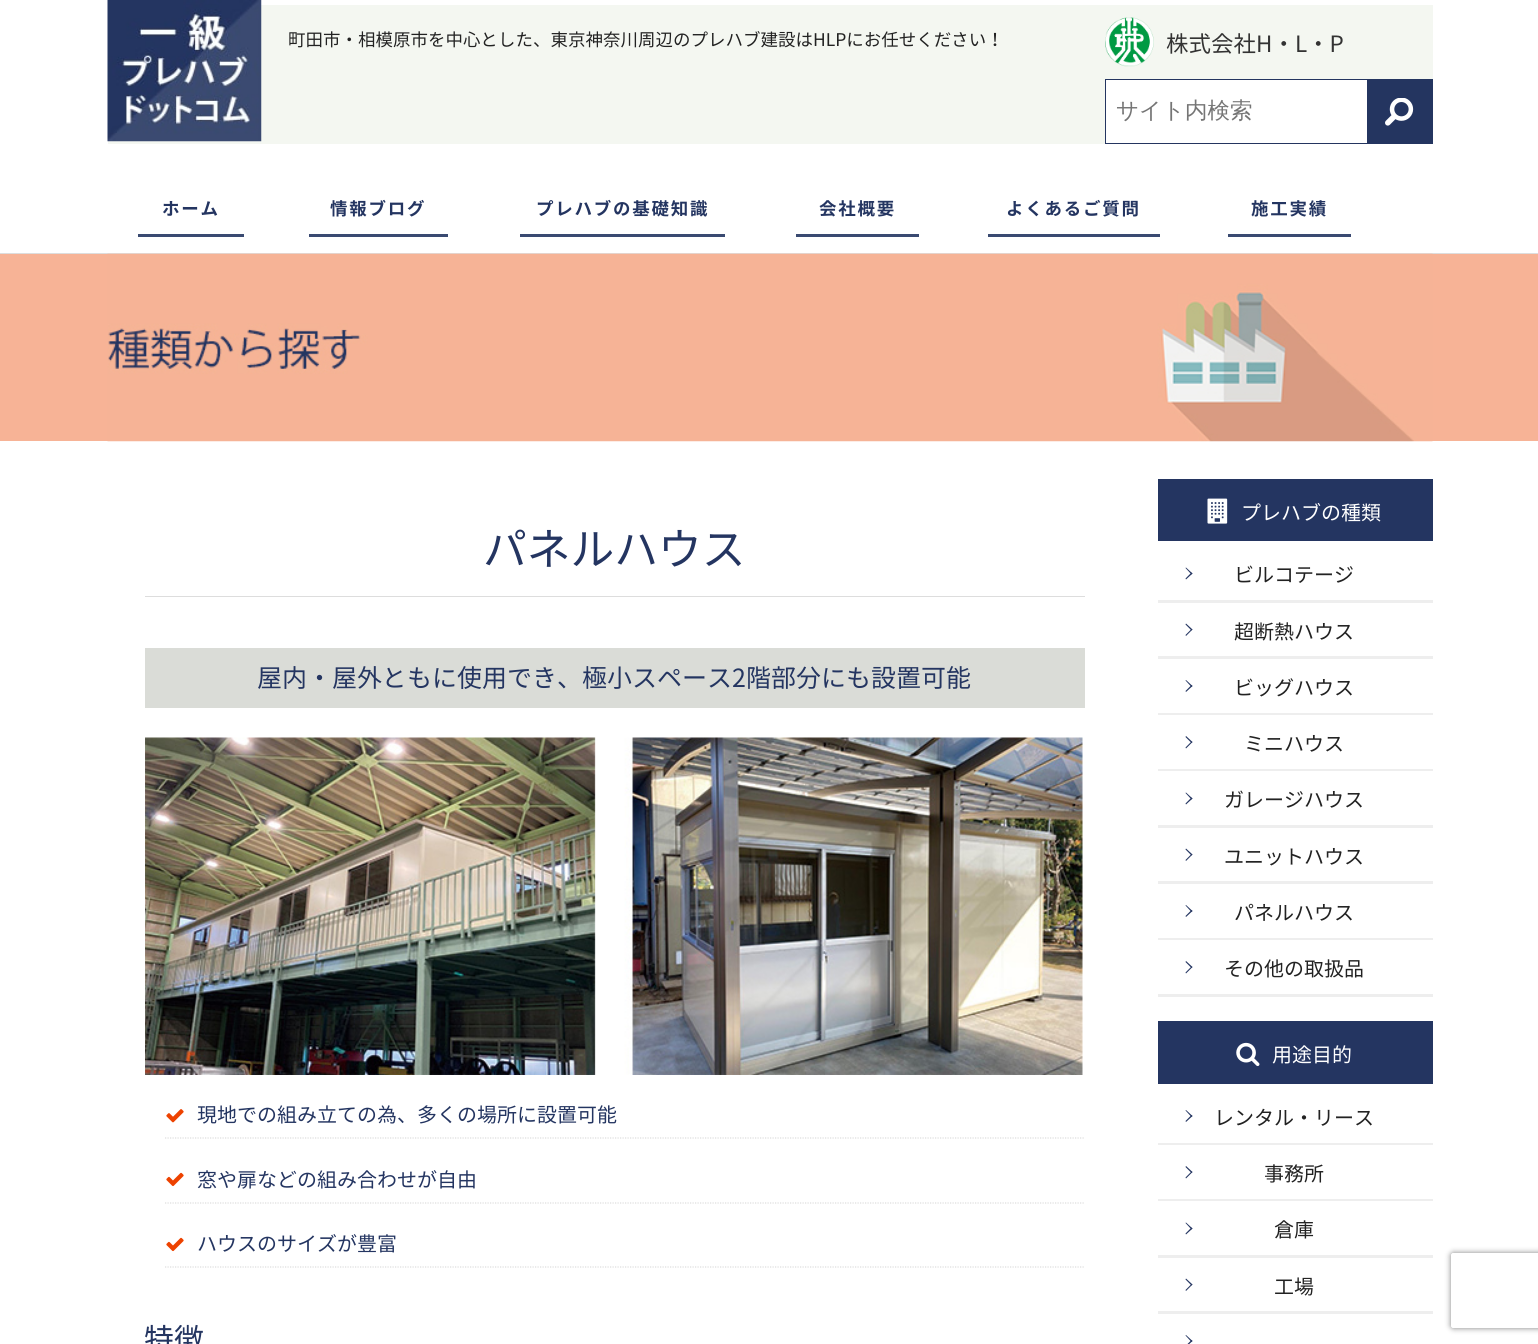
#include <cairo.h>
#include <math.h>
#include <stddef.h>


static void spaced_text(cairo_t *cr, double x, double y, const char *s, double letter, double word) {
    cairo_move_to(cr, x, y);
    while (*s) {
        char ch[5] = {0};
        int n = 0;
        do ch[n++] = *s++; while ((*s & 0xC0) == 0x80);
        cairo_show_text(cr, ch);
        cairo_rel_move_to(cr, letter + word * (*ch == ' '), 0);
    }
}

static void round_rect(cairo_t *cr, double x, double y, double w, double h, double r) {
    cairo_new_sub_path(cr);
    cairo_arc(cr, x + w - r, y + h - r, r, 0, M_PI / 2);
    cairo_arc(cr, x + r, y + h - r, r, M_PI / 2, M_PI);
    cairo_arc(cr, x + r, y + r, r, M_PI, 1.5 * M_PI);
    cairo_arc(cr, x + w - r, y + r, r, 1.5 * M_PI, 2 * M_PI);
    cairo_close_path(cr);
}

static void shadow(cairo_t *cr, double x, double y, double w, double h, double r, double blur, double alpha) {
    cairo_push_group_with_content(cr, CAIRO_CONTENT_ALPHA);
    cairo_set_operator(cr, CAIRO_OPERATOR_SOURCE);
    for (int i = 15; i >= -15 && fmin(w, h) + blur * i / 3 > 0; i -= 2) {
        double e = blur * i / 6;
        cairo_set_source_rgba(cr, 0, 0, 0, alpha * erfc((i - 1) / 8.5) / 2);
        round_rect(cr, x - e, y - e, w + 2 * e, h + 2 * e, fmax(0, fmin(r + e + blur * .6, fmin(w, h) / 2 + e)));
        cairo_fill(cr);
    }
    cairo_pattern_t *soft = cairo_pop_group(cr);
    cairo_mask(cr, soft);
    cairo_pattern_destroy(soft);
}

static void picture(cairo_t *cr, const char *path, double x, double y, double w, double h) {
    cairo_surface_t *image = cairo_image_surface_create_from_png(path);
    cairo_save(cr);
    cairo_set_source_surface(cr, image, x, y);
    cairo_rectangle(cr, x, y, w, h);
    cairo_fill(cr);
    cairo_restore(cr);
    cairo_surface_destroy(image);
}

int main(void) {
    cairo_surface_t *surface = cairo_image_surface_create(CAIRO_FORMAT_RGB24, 1538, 1344);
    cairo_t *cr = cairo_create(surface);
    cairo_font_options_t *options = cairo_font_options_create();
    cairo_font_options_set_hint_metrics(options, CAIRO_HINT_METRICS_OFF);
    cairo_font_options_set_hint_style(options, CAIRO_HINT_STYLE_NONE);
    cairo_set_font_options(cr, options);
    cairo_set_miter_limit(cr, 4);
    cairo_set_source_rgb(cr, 1, 1, 1);
    cairo_paint(cr);
    cairo_set_source_rgb(cr, 0.957, 0.965, 0.945);
    cairo_rectangle(cr, 108, 5, 1325, 139);
    cairo_fill(cr);
    picture(cr, "img1.png", 107, 0, 155, 142);
    cairo_select_font_face(cr, "Noto Sans JP", CAIRO_FONT_SLANT_NORMAL, CAIRO_FONT_WEIGHT_NORMAL);
    cairo_set_font_size(cr, 17.5);
    cairo_set_source_rgb(cr, 0.133, 0.133, 0.133);
    cairo_move_to(cr, 288, 46);
    cairo_show_text(cr, "町田市・相模原市を中心とした、東京神奈川周辺のプレハブ建設はHLPにお任せください！");
    picture(cr, "img2.png", 1105, 17, 49, 50);
    cairo_set_font_size(cr, 22.5);
    cairo_set_source_rgb(cr, 0.2, 0.2, 0.2);
    cairo_move_to(cr, 1166, 52);
    cairo_show_text(cr, "株式会社H・L・P");
    cairo_set_source_rgb(cr, 1, 1, 1);
    cairo_rectangle(cr, 1105.5, 79.5, 262, 64);
    cairo_fill_preserve(cr);
    cairo_set_source_rgb(cr, 0.141, 0.208, 0.376);
    cairo_set_line_width(cr, 1);
    cairo_stroke(cr);
    cairo_select_font_face(cr, "WenQuanYi Zen Hei Medium", CAIRO_FONT_SLANT_NORMAL, CAIRO_FONT_WEIGHT_NORMAL);
    cairo_set_source_rgb(cr, 0.459, 0.459, 0.459);
    cairo_move_to(cr, 1116, 118);
    cairo_show_text(cr, "サイト内検索");
    cairo_set_source_rgb(cr, 0.141, 0.208, 0.376);
    cairo_rectangle(cr, 1368, 79, 65, 65);
    cairo_fill(cr);
    picture(cr, "img3.png", 1385, 98, 29, 28);
    cairo_set_source_rgb(cr, 0.867, 0.867, 0.867);
    cairo_rectangle(cr, 0, 253, 1538, 1);
    cairo_fill(cr);
    cairo_select_font_face(cr, "Noto Sans JP", CAIRO_FONT_SLANT_NORMAL, CAIRO_FONT_WEIGHT_BOLD);
    cairo_set_font_size(cr, 17.5);
    cairo_set_source_rgb(cr, 0.141, 0.208, 0.38);
    spaced_text(cr, 162, 215, "ホーム", 1.75, 0);
    cairo_set_source_rgb(cr, 0.227, 0.29, 0.443);
    cairo_rectangle(cr, 138, 234, 106, 3);
    cairo_fill(cr);
    cairo_set_source_rgb(cr, 0.141, 0.208, 0.38);
    spaced_text(cr, 330, 215, "情報ブログ", 1.75, 0);
    cairo_set_source_rgb(cr, 0.227, 0.29, 0.443);
    cairo_rectangle(cr, 309, 234, 139, 3);
    cairo_fill(cr);
    cairo_set_source_rgb(cr, 0.141, 0.208, 0.38);
    spaced_text(cr, 536, 215, "プレハブの基礎知識", 1.75, 0);
    cairo_set_source_rgb(cr, 0.227, 0.29, 0.443);
    cairo_rectangle(cr, 520, 234, 205, 3);
    cairo_fill(cr);
    cairo_set_source_rgb(cr, 0.141, 0.208, 0.38);
    spaced_text(cr, 819, 215, "会社概要", 1.75, 0);
    cairo_set_source_rgb(cr, 0.227, 0.29, 0.443);
    cairo_rectangle(cr, 796, 234, 123, 3);
    cairo_fill(cr);
    cairo_set_source_rgb(cr, 0.141, 0.208, 0.38);
    spaced_text(cr, 1006, 215, "よくあるご質問", 1.75, 0);
    cairo_set_source_rgb(cr, 0.227, 0.29, 0.443);
    cairo_rectangle(cr, 988, 234, 172, 3);
    cairo_fill(cr);
    cairo_set_source_rgb(cr, 0.141, 0.208, 0.38);
    spaced_text(cr, 1251, 215, "施工実績", 1.75, 0);
    cairo_set_source_rgb(cr, 0.227, 0.29, 0.443);
    cairo_rectangle(cr, 1228, 234, 123, 3);
    cairo_fill(cr);
    cairo_set_source_rgb(cr, 0.965, 0.702, 0.588);
    cairo_rectangle(cr, 0, 254, 1538, 187);
    cairo_fill(cr);
    picture(cr, "img4.png", 107, 253, 1326, 189);
    cairo_set_source_rgb(cr, 0.867, 0.867, 0.867);
    cairo_rectangle(cr, 145, 596, 940, 1);
    cairo_fill(cr);
    cairo_select_font_face(cr, "Noto Sans JP", CAIRO_FONT_SLANT_NORMAL, CAIRO_FONT_WEIGHT_NORMAL);
    cairo_set_font_size(cr, 43.75);
    cairo_set_source_rgb(cr, 0.141, 0.208, 0.38);
    cairo_move_to(cr, 483, 565);
    cairo_show_text(cr, "パネルハウス");
    cairo_set_source_rgb(cr, 0.855, 0.863, 0.843);
    cairo_rectangle(cr, 145, 648, 940, 60);
    cairo_fill(cr);
    cairo_set_font_size(cr, 25);
    cairo_set_source_rgb(cr, 0.141, 0.208, 0.38);
    cairo_move_to(cr, 257, 687);
    cairo_show_text(cr, "屋内・屋外ともに使用でき、極小スペース2階部分にも設置可能");
    picture(cr, "img5.png", 145, 737, 938, 338);
    cairo_new_path(cr);
    cairo_move_to(cr, 165, 1138);
    cairo_line_to(cr, 1085, 1138);
    cairo_set_source_rgb(cr, 0.867, 0.867, 0.867);
    cairo_set_line_width(cr, 1.2);
    cairo_set_dash(cr, (double[]){1.25, 1.25}, 2, 0);
    cairo_stroke(cr);
    picture(cr, "img6.png", 166, 1109, 18, 14);
    cairo_set_font_size(cr, 20);
    cairo_set_source_rgb(cr, 0.141, 0.208, 0.38);
    cairo_move_to(cr, 197, 1122);
    cairo_show_text(cr, "現地での組み立ての為、多くの場所に設置可能");
    cairo_new_path(cr);
    cairo_move_to(cr, 165, 1203);
    cairo_line_to(cr, 1085, 1203);
    cairo_set_source_rgb(cr, 0.867, 0.867, 0.867);
    cairo_stroke(cr);
    picture(cr, "img7.png", 166, 1172, 18, 15);
    cairo_set_source_rgb(cr, 0.141, 0.208, 0.38);
    cairo_move_to(cr, 197, 1187);
    cairo_show_text(cr, "窓や扉などの組み合わせが自由");
    cairo_new_path(cr);
    cairo_move_to(cr, 165, 1267);
    cairo_line_to(cr, 1085, 1267);
    cairo_set_source_rgb(cr, 0.867, 0.867, 0.867);
    cairo_stroke(cr);
    picture(cr, "img7.png", 166, 1237, 18, 15);
    cairo_set_source_rgb(cr, 0.141, 0.208, 0.38);
    cairo_move_to(cr, 197, 1251);
    cairo_show_text(cr, "ハウスのサイズが豊富");
    cairo_set_font_size(cr, 30);
    cairo_move_to(cr, 144, 1350);
    cairo_show_text(cr, "特徴");
    cairo_rectangle(cr, 1158, 479, 275, 62);
    cairo_fill(cr);
    picture(cr, "img8.png", 1207, 498, 21, 26);
    cairo_set_font_size(cr, 20);
    cairo_set_source_rgb(cr, 1, 1, 1);
    cairo_move_to(cr, 1241, 520);
    cairo_show_text(cr, "プレハブの種類");
    cairo_set_source_rgb(cr, 0.933, 0.933, 0.933);
    cairo_rectangle(cr, 1158, 600, 275, 3);
    cairo_fill(cr);
    cairo_set_source_rgb(cr, 0.141, 0.208, 0.38);
    cairo_new_path(cr);
    cairo_move_to(cr, 1186, 567.5);
    cairo_line_to(cr, 1192.5, 573.5);
    cairo_line_to(cr, 1191.5, 574.5);
    cairo_line_to(cr, 1185.5, 568);
    cairo_close_path(cr);
    cairo_fill(cr);
    cairo_new_path(cr);
    cairo_move_to(cr, 1191.5, 572.5);
    cairo_line_to(cr, 1192.5, 573.5);
    cairo_line_to(cr, 1186, 579.5);
    cairo_line_to(cr, 1185.5, 578.5);
    cairo_close_path(cr);
    cairo_fill(cr);
    cairo_set_source_rgb(cr, 0.133, 0.133, 0.133);
    cairo_move_to(cr, 1234, 582);
    cairo_show_text(cr, "ビルコテージ");
    cairo_set_source_rgb(cr, 0.933, 0.933, 0.933);
    cairo_rectangle(cr, 1158, 656, 275, 3);
    cairo_fill(cr);
    cairo_set_source_rgb(cr, 0.141, 0.208, 0.38);
    cairo_new_path(cr);
    cairo_move_to(cr, 1186, 623.5);
    cairo_line_to(cr, 1192.5, 629.5);
    cairo_line_to(cr, 1191.5, 630.5);
    cairo_line_to(cr, 1185.5, 624.5);
    cairo_close_path(cr);
    cairo_fill(cr);
    cairo_new_path(cr);
    cairo_move_to(cr, 1191.5, 629);
    cairo_line_to(cr, 1192.5, 629.5);
    cairo_line_to(cr, 1186, 636);
    cairo_line_to(cr, 1185.5, 635);
    cairo_close_path(cr);
    cairo_fill(cr);
    cairo_set_source_rgb(cr, 0.133, 0.133, 0.133);
    cairo_move_to(cr, 1234, 639);
    cairo_show_text(cr, "超断熱ハウス");
    cairo_set_source_rgb(cr, 0.933, 0.933, 0.933);
    cairo_rectangle(cr, 1158, 713, 275, 2);
    cairo_fill(cr);
    cairo_set_source_rgb(cr, 0.141, 0.208, 0.38);
    cairo_new_path(cr);
    cairo_move_to(cr, 1186, 680);
    cairo_line_to(cr, 1192.5, 686);
    cairo_line_to(cr, 1191.5, 687);
    cairo_line_to(cr, 1185.5, 680.5);
    cairo_close_path(cr);
    cairo_fill(cr);
    cairo_new_path(cr);
    cairo_move_to(cr, 1191.5, 685);
    cairo_line_to(cr, 1192.5, 686);
    cairo_line_to(cr, 1186, 692);
    cairo_line_to(cr, 1185.5, 691);
    cairo_close_path(cr);
    cairo_fill(cr);
    cairo_set_source_rgb(cr, 0.133, 0.133, 0.133);
    cairo_move_to(cr, 1234, 695);
    cairo_show_text(cr, "ビッグハウス");
    cairo_set_source_rgb(cr, 0.933, 0.933, 0.933);
    cairo_rectangle(cr, 1158, 769, 275, 2);
    cairo_fill(cr);
    cairo_set_source_rgb(cr, 0.141, 0.208, 0.38);
    cairo_new_path(cr);
    cairo_move_to(cr, 1186, 736);
    cairo_line_to(cr, 1192.5, 742);
    cairo_line_to(cr, 1191.5, 743);
    cairo_line_to(cr, 1185.5, 737);
    cairo_close_path(cr);
    cairo_fill(cr);
    cairo_new_path(cr);
    cairo_move_to(cr, 1191.5, 741.5);
    cairo_line_to(cr, 1192.5, 742);
    cairo_line_to(cr, 1186, 748.5);
    cairo_line_to(cr, 1185.5, 747.5);
    cairo_close_path(cr);
    cairo_fill(cr);
    cairo_set_source_rgb(cr, 0.133, 0.133, 0.133);
    cairo_move_to(cr, 1244, 751);
    cairo_show_text(cr, "ミニハウス");
    cairo_set_source_rgb(cr, 0.933, 0.933, 0.933);
    cairo_rectangle(cr, 1158, 825, 275, 3);
    cairo_fill(cr);
    cairo_set_source_rgb(cr, 0.141, 0.208, 0.38);
    cairo_new_path(cr);
    cairo_move_to(cr, 1186, 792.5);
    cairo_line_to(cr, 1192.5, 798.5);
    cairo_line_to(cr, 1191.5, 799.5);
    cairo_line_to(cr, 1185.5, 793);
    cairo_close_path(cr);
    cairo_fill(cr);
    cairo_new_path(cr);
    cairo_move_to(cr, 1191.5, 797.5);
    cairo_line_to(cr, 1192.5, 798.5);
    cairo_line_to(cr, 1186, 804.5);
    cairo_line_to(cr, 1185.5, 803.5);
    cairo_close_path(cr);
    cairo_fill(cr);
    cairo_set_source_rgb(cr, 0.133, 0.133, 0.133);
    cairo_move_to(cr, 1224, 807);
    cairo_show_text(cr, "ガレージハウス");
    cairo_set_source_rgb(cr, 0.933, 0.933, 0.933);
    cairo_rectangle(cr, 1158, 881, 275, 3);
    cairo_fill(cr);
    cairo_set_source_rgb(cr, 0.141, 0.208, 0.38);
    cairo_new_path(cr);
    cairo_move_to(cr, 1186, 848.5);
    cairo_line_to(cr, 1192.5, 854.5);
    cairo_line_to(cr, 1191.5, 855.5);
    cairo_line_to(cr, 1185.5, 849.5);
    cairo_close_path(cr);
    cairo_fill(cr);
    cairo_new_path(cr);
    cairo_move_to(cr, 1191.5, 854);
    cairo_line_to(cr, 1192.5, 854.5);
    cairo_line_to(cr, 1186, 861);
    cairo_line_to(cr, 1185.5, 860);
    cairo_close_path(cr);
    cairo_fill(cr);
    cairo_set_source_rgb(cr, 0.133, 0.133, 0.133);
    cairo_move_to(cr, 1224, 864);
    cairo_show_text(cr, "ユニットハウス");
    cairo_set_source_rgb(cr, 0.933, 0.933, 0.933);
    cairo_rectangle(cr, 1158, 938, 275, 2);
    cairo_fill(cr);
    cairo_set_source_rgb(cr, 0.141, 0.208, 0.38);
    cairo_new_path(cr);
    cairo_move_to(cr, 1186, 905);
    cairo_line_to(cr, 1192.5, 911);
    cairo_line_to(cr, 1191.5, 912);
    cairo_line_to(cr, 1185.5, 905.5);
    cairo_close_path(cr);
    cairo_fill(cr);
    cairo_new_path(cr);
    cairo_move_to(cr, 1191.5, 910);
    cairo_line_to(cr, 1192.5, 911);
    cairo_line_to(cr, 1186, 917);
    cairo_line_to(cr, 1185.5, 916);
    cairo_close_path(cr);
    cairo_fill(cr);
    cairo_set_source_rgb(cr, 0.133, 0.133, 0.133);
    cairo_move_to(cr, 1234, 920);
    cairo_show_text(cr, "パネルハウス");
    cairo_set_source_rgb(cr, 0.933, 0.933, 0.933);
    cairo_rectangle(cr, 1158, 994, 275, 3);
    cairo_fill(cr);
    cairo_set_source_rgb(cr, 0.141, 0.208, 0.38);
    cairo_new_path(cr);
    cairo_move_to(cr, 1186, 961);
    cairo_line_to(cr, 1192.5, 967);
    cairo_line_to(cr, 1191.5, 968);
    cairo_line_to(cr, 1185.5, 962);
    cairo_close_path(cr);
    cairo_fill(cr);
    cairo_new_path(cr);
    cairo_move_to(cr, 1191.5, 966.5);
    cairo_line_to(cr, 1192.5, 967);
    cairo_line_to(cr, 1186, 973.5);
    cairo_line_to(cr, 1185.5, 972.5);
    cairo_close_path(cr);
    cairo_fill(cr);
    cairo_set_source_rgb(cr, 0.133, 0.133, 0.133);
    cairo_move_to(cr, 1224, 976);
    cairo_show_text(cr, "その他の取扱品");
    cairo_set_source_rgb(cr, 0.141, 0.208, 0.38);
    cairo_rectangle(cr, 1158, 1021, 275, 63);
    cairo_fill(cr);
    picture(cr, "img9.png", 1236, 1042, 24, 25);
    cairo_set_source_rgb(cr, 1, 1, 1);
    cairo_move_to(cr, 1272, 1062);
    cairo_show_text(cr, "用途目的");
    cairo_set_source_rgb(cr, 0.933, 0.933, 0.933);
    cairo_rectangle(cr, 1158, 1143, 275, 2);
    cairo_fill(cr);
    cairo_set_source_rgb(cr, 0.141, 0.208, 0.38);
    cairo_new_path(cr);
    cairo_move_to(cr, 1186, 1110);
    cairo_line_to(cr, 1192.5, 1116);
    cairo_line_to(cr, 1191.5, 1117);
    cairo_line_to(cr, 1185.5, 1110.5);
    cairo_close_path(cr);
    cairo_fill(cr);
    cairo_new_path(cr);
    cairo_move_to(cr, 1191.5, 1115);
    cairo_line_to(cr, 1192.5, 1116);
    cairo_line_to(cr, 1186, 1122);
    cairo_line_to(cr, 1185.5, 1121);
    cairo_close_path(cr);
    cairo_fill(cr);
    cairo_set_source_rgb(cr, 0.133, 0.133, 0.133);
    cairo_move_to(cr, 1214, 1125);
    cairo_show_text(cr, "レンタル・リース");
    cairo_set_source_rgb(cr, 0.933, 0.933, 0.933);
    cairo_rectangle(cr, 1158, 1199, 275, 2);
    cairo_fill(cr);
    cairo_set_source_rgb(cr, 0.141, 0.208, 0.38);
    cairo_new_path(cr);
    cairo_move_to(cr, 1186, 1166);
    cairo_line_to(cr, 1192.5, 1172);
    cairo_line_to(cr, 1191.5, 1173);
    cairo_line_to(cr, 1185.5, 1167);
    cairo_close_path(cr);
    cairo_fill(cr);
    cairo_new_path(cr);
    cairo_move_to(cr, 1191.5, 1171.5);
    cairo_line_to(cr, 1192.5, 1172);
    cairo_line_to(cr, 1186, 1178.5);
    cairo_line_to(cr, 1185.5, 1177.5);
    cairo_close_path(cr);
    cairo_fill(cr);
    cairo_set_source_rgb(cr, 0.133, 0.133, 0.133);
    cairo_move_to(cr, 1264, 1181);
    cairo_show_text(cr, "事務所");
    cairo_set_source_rgb(cr, 0.933, 0.933, 0.933);
    cairo_rectangle(cr, 1158, 1255, 275, 3);
    cairo_fill(cr);
    cairo_set_source_rgb(cr, 0.141, 0.208, 0.38);
    cairo_new_path(cr);
    cairo_move_to(cr, 1186, 1222.5);
    cairo_line_to(cr, 1192.5, 1228.5);
    cairo_line_to(cr, 1191.5, 1229.5);
    cairo_line_to(cr, 1185.5, 1223);
    cairo_close_path(cr);
    cairo_fill(cr);
    cairo_new_path(cr);
    cairo_move_to(cr, 1191.5, 1227.5);
    cairo_line_to(cr, 1192.5, 1228.5);
    cairo_line_to(cr, 1186, 1234.5);
    cairo_line_to(cr, 1185.5, 1233.5);
    cairo_close_path(cr);
    cairo_fill(cr);
    cairo_set_source_rgb(cr, 0.133, 0.133, 0.133);
    cairo_move_to(cr, 1274, 1237);
    cairo_show_text(cr, "倉庫");
    cairo_set_source_rgb(cr, 0.933, 0.933, 0.933);
    cairo_rectangle(cr, 1158, 1311, 275, 3);
    cairo_fill(cr);
    cairo_set_source_rgb(cr, 0.141, 0.208, 0.38);
    cairo_new_path(cr);
    cairo_move_to(cr, 1186, 1278.5);
    cairo_line_to(cr, 1192.5, 1284.5);
    cairo_line_to(cr, 1191.5, 1285.5);
    cairo_line_to(cr, 1185.5, 1279.5);
    cairo_close_path(cr);
    cairo_fill(cr);
    cairo_new_path(cr);
    cairo_move_to(cr, 1191.5, 1284);
    cairo_line_to(cr, 1192.5, 1284.5);
    cairo_line_to(cr, 1186, 1291);
    cairo_line_to(cr, 1185.5, 1290);
    cairo_close_path(cr);
    cairo_move_to(cr, 1186, 1335);
    cairo_line_to(cr, 1192.5, 1341);
    cairo_line_to(cr, 1191.5, 1342);
    cairo_line_to(cr, 1185.5, 1335.5);
    cairo_close_path(cr);
    cairo_fill(cr);
    cairo_set_source_rgb(cr, 0.133, 0.133, 0.133);
    cairo_move_to(cr, 1274, 1294);
    cairo_show_text(cr, "工場");
    cairo_set_source_rgb(cr, 0.141, 0.208, 0.38);
    cairo_new_path(cr);
    cairo_move_to(cr, 1191.5, 1340);
    cairo_line_to(cr, 1192.5, 1341);
    cairo_line_to(cr, 1186, 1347);
    cairo_line_to(cr, 1185.5, 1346);
    cairo_close_path(cr);
    cairo_fill(cr);
    cairo_save(cr);
    cairo_set_fill_rule(cr, CAIRO_FILL_RULE_EVEN_ODD);
    cairo_new_path(cr);
    cairo_move_to(cr, 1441, 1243);
    cairo_line_to(cr, 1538, 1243);
    cairo_line_to(cr, 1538, 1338);
    cairo_line_to(cr, 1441, 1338);
    cairo_close_path(cr);
    cairo_move_to(cr, 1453.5, 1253);
    cairo_line_to(cr, 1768.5, 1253);
    cairo_curve_to(cr, 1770, 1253, 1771, 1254, 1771, 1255.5);
    cairo_line_to(cr, 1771, 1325.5);
    cairo_curve_to(cr, 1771, 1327, 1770, 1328, 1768.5, 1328);
    cairo_line_to(cr, 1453.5, 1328);
    cairo_curve_to(cr, 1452, 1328, 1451, 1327, 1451, 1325.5);
    cairo_line_to(cr, 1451, 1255.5);
    cairo_curve_to(cr, 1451, 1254, 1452, 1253, 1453.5, 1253);
    cairo_close_path(cr);
    cairo_clip(cr);
    cairo_set_source_rgb(cr, 0.502, 0.502, 0.502);
    shadow(cr, 1451, 1253, 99, 75, 2.5, 3, 1);
    cairo_restore(cr);
    cairo_surface_write_to_png(surface, "page.png");
    cairo_font_options_destroy(options);
    cairo_destroy(cr);
    cairo_surface_destroy(surface);
    return 0;
}
